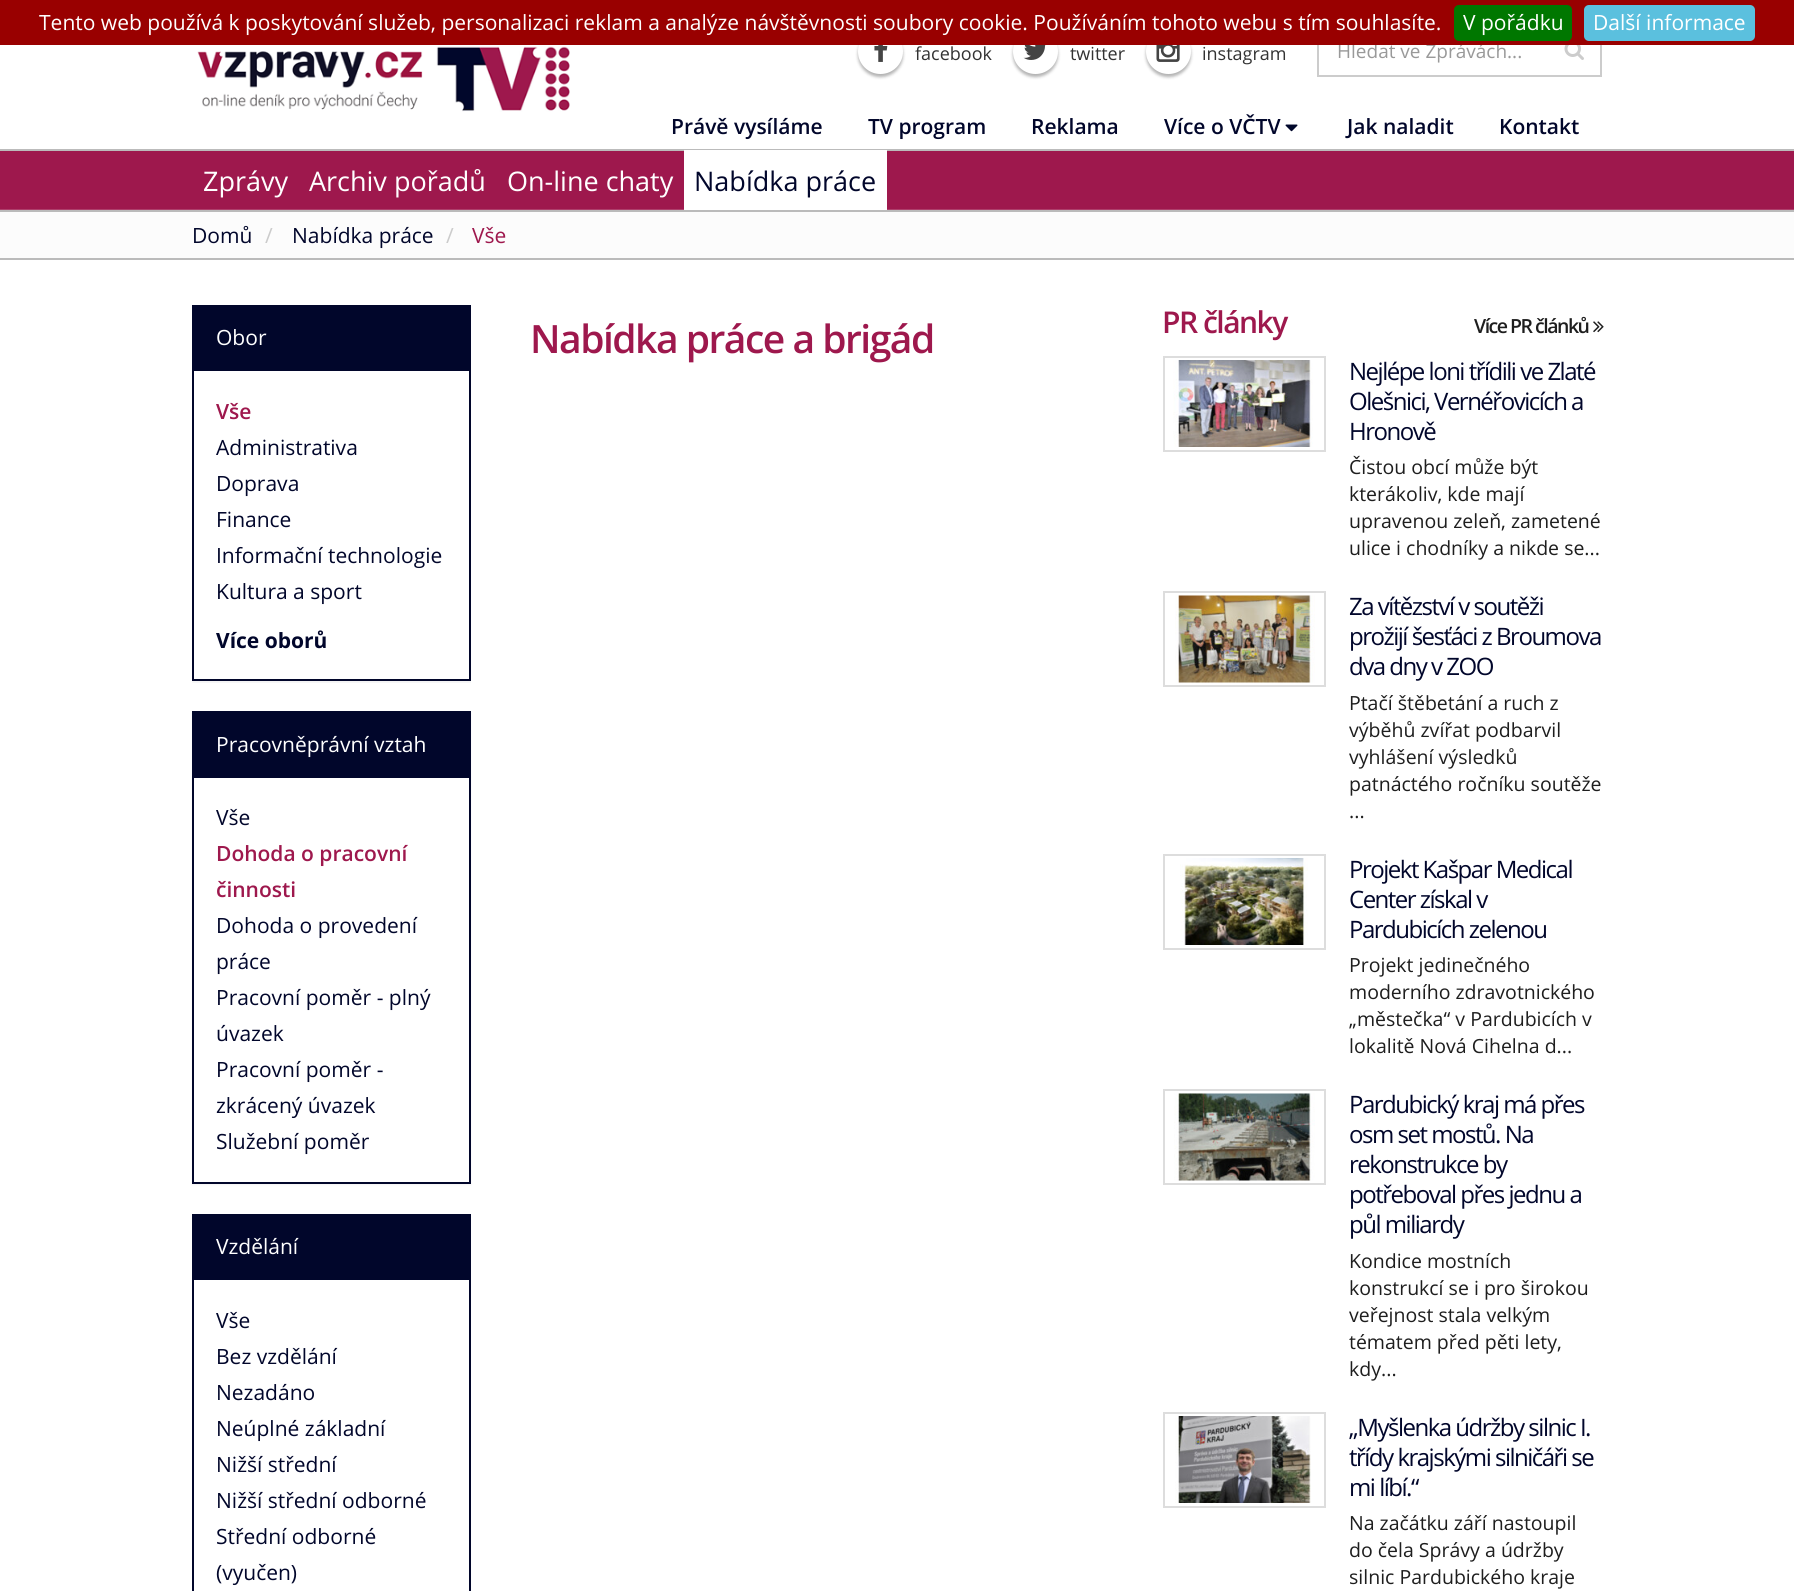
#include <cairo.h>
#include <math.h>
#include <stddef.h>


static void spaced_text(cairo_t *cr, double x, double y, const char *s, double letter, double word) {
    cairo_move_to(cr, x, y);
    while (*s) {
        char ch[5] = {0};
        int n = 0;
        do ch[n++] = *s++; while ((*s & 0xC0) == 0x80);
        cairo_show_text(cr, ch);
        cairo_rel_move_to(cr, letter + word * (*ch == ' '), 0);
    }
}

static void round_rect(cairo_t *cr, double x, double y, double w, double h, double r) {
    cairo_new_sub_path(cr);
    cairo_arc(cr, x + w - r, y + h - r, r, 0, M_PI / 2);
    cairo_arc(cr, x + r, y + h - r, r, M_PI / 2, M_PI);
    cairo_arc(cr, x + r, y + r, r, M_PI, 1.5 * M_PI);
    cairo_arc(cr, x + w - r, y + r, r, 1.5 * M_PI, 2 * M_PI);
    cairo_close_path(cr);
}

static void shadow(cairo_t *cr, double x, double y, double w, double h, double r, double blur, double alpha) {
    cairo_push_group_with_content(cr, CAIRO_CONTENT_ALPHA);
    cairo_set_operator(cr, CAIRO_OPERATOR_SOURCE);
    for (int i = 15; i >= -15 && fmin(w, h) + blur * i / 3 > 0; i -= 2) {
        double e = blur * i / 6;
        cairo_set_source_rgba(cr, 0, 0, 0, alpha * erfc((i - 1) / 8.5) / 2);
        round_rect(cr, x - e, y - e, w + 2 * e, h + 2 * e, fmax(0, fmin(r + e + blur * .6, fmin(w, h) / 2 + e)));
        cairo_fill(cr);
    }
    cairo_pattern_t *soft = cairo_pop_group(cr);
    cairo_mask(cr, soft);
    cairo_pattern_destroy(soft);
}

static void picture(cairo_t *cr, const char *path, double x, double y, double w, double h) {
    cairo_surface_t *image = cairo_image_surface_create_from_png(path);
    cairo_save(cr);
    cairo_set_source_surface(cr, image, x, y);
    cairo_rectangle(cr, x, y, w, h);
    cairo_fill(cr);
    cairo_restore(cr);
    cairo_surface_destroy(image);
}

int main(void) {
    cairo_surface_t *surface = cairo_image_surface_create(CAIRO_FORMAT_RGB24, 1794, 1591);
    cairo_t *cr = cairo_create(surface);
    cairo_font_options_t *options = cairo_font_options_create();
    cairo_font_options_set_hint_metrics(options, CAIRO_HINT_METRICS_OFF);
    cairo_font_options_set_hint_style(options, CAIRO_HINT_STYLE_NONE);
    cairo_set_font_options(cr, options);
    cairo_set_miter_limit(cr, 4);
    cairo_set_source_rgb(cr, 1, 1, 1);
    cairo_paint(cr);
    cairo_set_source_rgb(cr, 0, 0, 0);
    shadow(cr, 858, 32, 45, 45, 22.5, 1.5, 0.3);
    cairo_set_source_rgb(cr, 1, 1, 1);
    cairo_arc(cr, 880.5, 51.5, 22.5, 0, 2 * M_PI);
    cairo_fill(cr);
    cairo_set_source_rgb(cr, 0, 0, 0);
    shadow(cr, 1013, 32, 45, 45, 22.5, 1.5, 0.3);
    cairo_set_source_rgb(cr, 1, 1, 1);
    cairo_arc(cr, 1035.5, 51.5, 22.5, 0, 2 * M_PI);
    cairo_fill(cr);
    cairo_set_source_rgb(cr, 0, 0, 0);
    shadow(cr, 1146, 32, 45, 45, 22.5, 1.5, 0.3);
    cairo_set_source_rgb(cr, 1, 1, 1);
    cairo_arc(cr, 1168.5, 51.5, 22.5, 0, 2 * M_PI);
    cairo_fill(cr);
    cairo_rectangle(cr, 1318, 27, 283, 49);
    cairo_set_source_rgb(cr, 0.8, 0.8, 0.8);
    cairo_stroke(cr);
    cairo_select_font_face(cr, "Open Sans", CAIRO_FONT_SLANT_NORMAL, CAIRO_FONT_WEIGHT_NORMAL);
    cairo_set_font_size(cr, 19);
    cairo_set_source_rgb(cr, 0.6, 0.6, 0.6);
    cairo_move_to(cr, 1337, 58);
    cairo_show_text(cr, "Hledat ve Zprávách...");
    cairo_set_source_rgb(cr, 0.6, 0, 0);
    cairo_rectangle(cr, 0, 0, 1794, 45);
    cairo_fill(cr);
    cairo_set_font_size(cr, 21);
    cairo_set_source_rgb(cr, 1, 1, 1);
    cairo_move_to(cr, 39, 30);
    cairo_show_text(cr, "Tento web používá k poskytování služeb, personalizaci reklam a analýze návštěvnosti soubory cookie. Používáním tohoto webu s tím souhlasíte.");
    cairo_set_source_rgb(cr, 0, 0.467, 0);
    round_rect(cr, 1454, 5, 118, 36, 5);
    cairo_fill(cr);
    cairo_set_source_rgb(cr, 1, 1, 1);
    cairo_move_to(cr, 1463, 30);
    cairo_show_text(cr, "V pořádku");
    cairo_set_source_rgb(cr, 0.357, 0.753, 0.871);
    round_rect(cr, 1584, 5, 171, 36, 5);
    cairo_fill(cr);
    cairo_set_source_rgb(cr, 1, 1, 1);
    cairo_move_to(cr, 1593, 30);
    cairo_show_text(cr, "Další informace");
    picture(cr, "img1.png", 197, 51, 226, 59);
    picture(cr, "img2.png", 436, 46, 134, 66);
    picture(cr, "img3.png", 874, 45, 14, 17);
    cairo_set_font_size(cr, 18);
    cairo_set_source_rgb(cr, 0.2, 0.2, 0.2);
    cairo_move_to(cr, 915, 60);
    cairo_show_text(cr, "facebook");
    picture(cr, "img4.png", 1023, 45, 23, 15);
    cairo_move_to(cr, 1070, 60);
    cairo_show_text(cr, "twitter");
    picture(cr, "img5.png", 1156, 45, 24, 17);
    cairo_move_to(cr, 1202, 60);
    cairo_show_text(cr, "instagram");
    picture(cr, "img6.png", 1564, 45, 20, 15);
    cairo_select_font_face(cr, "Open Sans SemiBold", CAIRO_FONT_SLANT_NORMAL, CAIRO_FONT_WEIGHT_NORMAL);
    cairo_set_font_size(cr, 21);
    cairo_set_source_rgb(cr, 0.004, 0.027, 0.169);
    cairo_move_to(cr, 671, 134);
    cairo_show_text(cr, "Právě vysíláme");
    cairo_move_to(cr, 868, 134);
    cairo_show_text(cr, "TV program");
    cairo_move_to(cr, 1031, 134);
    cairo_show_text(cr, "Reklama");
    cairo_move_to(cr, 1164, 134);
    cairo_show_text(cr, "Více o VČTV");
    picture(cr, "img7.png", 1285, 124, 13, 8);
    cairo_move_to(cr, 1347, 134);
    cairo_show_text(cr, "Jak naladit");
    cairo_move_to(cr, 1499, 134);
    cairo_show_text(cr, "Kontakt");
    picture(cr, "img8.png", 0, 151, 1794, 59);
    cairo_set_source_rgb(cr, 0.733, 0.733, 0.733);
    cairo_rectangle(cr, 0, 149, 1794, 2);
    cairo_fill(cr);
    cairo_rectangle(cr, 0, 210, 1794, 2);
    cairo_fill(cr);
    cairo_select_font_face(cr, "Open Sans", CAIRO_FONT_SLANT_NORMAL, CAIRO_FONT_WEIGHT_NORMAL);
    cairo_set_font_size(cr, 27);
    cairo_set_source_rgb(cr, 1, 1, 1);
    cairo_move_to(cr, 203, 191);
    cairo_show_text(cr, "Zprávy");
    cairo_move_to(cr, 309, 191);
    cairo_show_text(cr, "Archiv pořadů");
    cairo_move_to(cr, 507, 191);
    cairo_show_text(cr, "On-line chaty");
    cairo_rectangle(cr, 684, 150, 203, 60);
    cairo_fill(cr);
    cairo_set_source_rgb(cr, 0.004, 0.027, 0.169);
    cairo_move_to(cr, 694, 191);
    cairo_show_text(cr, "Nabídka práce");
    cairo_set_source_rgb(cr, 0.988, 0.988, 0.988);
    cairo_rectangle(cr, 0, 212, 1794, 46);
    cairo_fill(cr);
    cairo_set_source_rgb(cr, 0.733, 0.733, 0.733);
    cairo_rectangle(cr, 0, 258, 1794, 2);
    cairo_fill(cr);
    cairo_set_font_size(cr, 21);
    cairo_set_source_rgb(cr, 0.004, 0.027, 0.169);
    cairo_move_to(cr, 192, 243);
    cairo_show_text(cr, "Domů");
    cairo_set_source_rgb(cr, 0.8, 0.8, 0.8);
    cairo_move_to(cr, 265, 243);
    cairo_show_text(cr, "/");
    cairo_set_source_rgb(cr, 0.004, 0.027, 0.169);
    cairo_move_to(cr, 292, 243);
    cairo_show_text(cr, "Nabídka práce");
    cairo_set_source_rgb(cr, 0.8, 0.8, 0.8);
    cairo_move_to(cr, 446, 243);
    cairo_show_text(cr, "/");
    cairo_set_source_rgb(cr, 0.62, 0.094, 0.302);
    cairo_move_to(cr, 472, 243);
    cairo_show_text(cr, "Vše");
    cairo_save(cr);
    cairo_rectangle(cr, 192, 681, 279, 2);
    cairo_clip(cr);
    cairo_set_source_rgb(cr, 0, 0, 0);
    shadow(cr, 192, 306, 279, 377, 0, 1, 0.05);
    cairo_restore(cr);
    cairo_rectangle(cr, 193, 306, 277, 374);
    cairo_set_source_rgb(cr, 0.004, 0.027, 0.169);
    cairo_stroke(cr);
    cairo_rectangle(cr, 194, 307, 275, 64);
    cairo_fill(cr);
    cairo_set_source_rgb(cr, 1, 1, 1);
    cairo_move_to(cr, 216, 345);
    cairo_show_text(cr, "Obor");
    cairo_select_font_face(cr, "Open Sans SemiBold", CAIRO_FONT_SLANT_NORMAL, CAIRO_FONT_WEIGHT_NORMAL);
    cairo_set_source_rgb(cr, 0.62, 0.094, 0.302);
    cairo_move_to(cr, 216, 419);
    cairo_show_text(cr, "Vše");
    cairo_select_font_face(cr, "Open Sans", CAIRO_FONT_SLANT_NORMAL, CAIRO_FONT_WEIGHT_NORMAL);
    cairo_set_source_rgb(cr, 0.004, 0.027, 0.169);
    cairo_move_to(cr, 216, 455);
    cairo_show_text(cr, "Administrativa");
    cairo_move_to(cr, 216, 491);
    cairo_show_text(cr, "Doprava");
    cairo_move_to(cr, 216, 527);
    cairo_show_text(cr, "Finance");
    cairo_move_to(cr, 216, 563);
    cairo_show_text(cr, "Informační technologie");
    cairo_move_to(cr, 216, 599);
    cairo_show_text(cr, "Kultura a sport");
    cairo_select_font_face(cr, "Open Sans", CAIRO_FONT_SLANT_NORMAL, CAIRO_FONT_WEIGHT_BOLD);
    cairo_move_to(cr, 216, 648);
    cairo_show_text(cr, "Více oborů");
    cairo_set_source_rgb(cr, 0, 0, 0);
    shadow(cr, 192, 713, 279, 472, 0, 1, 0.05);
    cairo_set_source_rgb(cr, 1, 1, 1);
    cairo_rectangle(cr, 194, 778, 275, 404);
    cairo_fill(cr);
    cairo_rectangle(cr, 193, 712, 277, 471);
    cairo_set_source_rgb(cr, 0.004, 0.027, 0.169);
    cairo_stroke(cr);
    cairo_rectangle(cr, 194, 713, 275, 63);
    cairo_fill(cr);
    cairo_rectangle(cr, 194, 776, 276, 2);
    cairo_fill(cr);
    cairo_select_font_face(cr, "Open Sans", CAIRO_FONT_SLANT_NORMAL, CAIRO_FONT_WEIGHT_NORMAL);
    cairo_set_source_rgb(cr, 1, 1, 1);
    cairo_move_to(cr, 216, 752);
    cairo_show_text(cr, "Pracovněprávní vztah");
    cairo_set_source_rgb(cr, 0.004, 0.027, 0.169);
    cairo_move_to(cr, 216, 825);
    cairo_show_text(cr, "Vše");
    cairo_select_font_face(cr, "Open Sans SemiBold", CAIRO_FONT_SLANT_NORMAL, CAIRO_FONT_WEIGHT_NORMAL);
    cairo_set_source_rgb(cr, 0.62, 0.094, 0.302);
    cairo_move_to(cr, 216, 861);
    cairo_show_text(cr, "Dohoda o pracovní");
    cairo_move_to(cr, 216, 897);
    cairo_show_text(cr, "činnosti");
    cairo_select_font_face(cr, "Open Sans", CAIRO_FONT_SLANT_NORMAL, CAIRO_FONT_WEIGHT_NORMAL);
    cairo_set_source_rgb(cr, 0.004, 0.027, 0.169);
    cairo_move_to(cr, 216, 933);
    cairo_show_text(cr, "Dohoda o provedení");
    cairo_move_to(cr, 216, 969);
    cairo_show_text(cr, "práce");
    cairo_move_to(cr, 216, 1005);
    cairo_show_text(cr, "Pracovní poměr - plný");
    cairo_move_to(cr, 216, 1041);
    cairo_show_text(cr, "úvazek");
    cairo_move_to(cr, 216, 1077);
    cairo_show_text(cr, "Pracovní poměr -");
    cairo_move_to(cr, 216, 1113);
    cairo_show_text(cr, "zkrácený úvazek");
    cairo_move_to(cr, 216, 1149);
    cairo_show_text(cr, "Služební poměr");
    cairo_rectangle(cr, 193, 1215, 277, 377);
    cairo_stroke(cr);
    cairo_rectangle(cr, 194, 1216, 275, 64);
    cairo_fill(cr);
    cairo_set_source_rgb(cr, 1, 1, 1);
    cairo_move_to(cr, 216, 1254);
    cairo_show_text(cr, "Vzdělání");
    cairo_set_source_rgb(cr, 0.004, 0.027, 0.169);
    cairo_move_to(cr, 216, 1328);
    cairo_show_text(cr, "Vše");
    cairo_move_to(cr, 216, 1364);
    cairo_show_text(cr, "Bez vzdělání");
    cairo_move_to(cr, 216, 1400);
    cairo_show_text(cr, "Nezadáno");
    cairo_move_to(cr, 216, 1436);
    cairo_show_text(cr, "Neúplné základní");
    cairo_move_to(cr, 216, 1472);
    cairo_show_text(cr, "Nižší střední");
    cairo_move_to(cr, 216, 1508);
    cairo_show_text(cr, "Nižší střední odborné");
    cairo_move_to(cr, 216, 1544);
    cairo_show_text(cr, "Střední odborné");
    cairo_move_to(cr, 216, 1580);
    cairo_show_text(cr, "(vyučen)");
    cairo_select_font_face(cr, "Open Sans SemiBold", CAIRO_FONT_SLANT_NORMAL, CAIRO_FONT_WEIGHT_NORMAL);
    cairo_set_font_size(cr, 39);
    cairo_set_source_rgb(cr, 0.62, 0.094, 0.302);
    spaced_text(cr, 530, 353, "Nabídka práce a brigád", -1.5, 0);
    cairo_set_font_size(cr, 30);
    spaced_text(cr, 1162, 333, "PR články", -1.5, 0);
    cairo_set_font_size(cr, 19.5);
    cairo_set_source_rgb(cr, 0.118, 0.118, 0.118);
    spaced_text(cr, 1474, 333, "Více PR článků", -1.5, 0);
    picture(cr, "img9.png", 1593, 321, 11, 12);
    cairo_rectangle(cr, 1164, 357, 161, 94);
    cairo_set_source_rgb(cr, 0.867, 0.867, 0.867);
    cairo_stroke(cr);
    picture(cr, "img10.png", 1173, 360, 140, 87);
    cairo_select_font_face(cr, "Open Sans", CAIRO_FONT_SLANT_NORMAL, CAIRO_FONT_WEIGHT_NORMAL);
    cairo_set_font_size(cr, 24);
    cairo_set_source_rgb(cr, 0.004, 0.027, 0.169);
    spaced_text(cr, 1349, 380, "Nejlépe loni třídili ve Zlaté", -1.5, 0);
    spaced_text(cr, 1349, 410, "Olešnici, Vernéřovicích a", -1.5, 0);
    spaced_text(cr, 1349, 440, "Hronově", -1.5, 0);
    cairo_set_font_size(cr, 19.5);
    cairo_set_source_rgb(cr, 0.118, 0.118, 0.118);
    cairo_move_to(cr, 1349, 474);
    cairo_show_text(cr, "Čistou obcí může být");
    cairo_move_to(cr, 1349, 501);
    cairo_show_text(cr, "kterákoliv, kde mají");
    cairo_move_to(cr, 1349, 528);
    cairo_show_text(cr, "upravenou zeleň, zametené");
    cairo_move_to(cr, 1349, 555);
    cairo_show_text(cr, "ulice i chodníky a nikde se...");
    cairo_rectangle(cr, 1164, 592, 161, 94);
    cairo_set_source_rgb(cr, 0.867, 0.867, 0.867);
    cairo_stroke(cr);
    picture(cr, "img11.png", 1175, 595, 140, 88);
    cairo_set_font_size(cr, 24);
    cairo_set_source_rgb(cr, 0.004, 0.027, 0.169);
    spaced_text(cr, 1349, 615, "Za vítězství v soutěži", -1.5, 0);
    spaced_text(cr, 1349, 645, "prožijí šesťáci z Broumova", -1.5, 0);
    spaced_text(cr, 1349, 675, "dva dny v ZOO", -1.5, 0);
    cairo_set_font_size(cr, 19.5);
    cairo_set_source_rgb(cr, 0.118, 0.118, 0.118);
    cairo_move_to(cr, 1349, 710);
    cairo_show_text(cr, "Ptačí štěbetání a ruch z");
    cairo_move_to(cr, 1349, 737);
    cairo_show_text(cr, "výběhů zvířat podbarvil");
    cairo_move_to(cr, 1349, 764);
    cairo_show_text(cr, "vyhlášení výsledků");
    cairo_move_to(cr, 1349, 791);
    cairo_show_text(cr, "patnáctého ročníku soutěže");
    cairo_move_to(cr, 1349, 818);
    cairo_show_text(cr, "...");
    cairo_rectangle(cr, 1164, 855, 161, 94);
    cairo_set_source_rgb(cr, 0.867, 0.867, 0.867);
    cairo_stroke(cr);
    picture(cr, "img12.png", 1180, 858, 128, 87);
    cairo_set_font_size(cr, 24);
    cairo_set_source_rgb(cr, 0.004, 0.027, 0.169);
    spaced_text(cr, 1349, 878, "Projekt Kašpar Medical", -1.5, 0);
    spaced_text(cr, 1349, 908, "Center získal v", -1.5, 0);
    spaced_text(cr, 1349, 938, "Pardubicích zelenou", -1.5, 0);
    cairo_set_font_size(cr, 19.5);
    cairo_set_source_rgb(cr, 0.118, 0.118, 0.118);
    cairo_move_to(cr, 1349, 972);
    cairo_show_text(cr, "Projekt jedinečného");
    cairo_move_to(cr, 1349, 999);
    cairo_show_text(cr, "moderního zdravotnického");
    cairo_move_to(cr, 1349, 1026);
    cairo_show_text(cr, "„městečka“ v Pardubicích v");
    cairo_move_to(cr, 1349, 1053);
    cairo_show_text(cr, "lokalitě Nová Cihelna d...");
    cairo_rectangle(cr, 1164, 1090, 161, 94);
    cairo_set_source_rgb(cr, 0.867, 0.867, 0.867);
    cairo_stroke(cr);
    picture(cr, "img13.png", 1174, 1093, 141, 88);
    cairo_set_font_size(cr, 24);
    cairo_set_source_rgb(cr, 0.004, 0.027, 0.169);
    spaced_text(cr, 1349, 1113, "Pardubický kraj má přes", -1.5, 0);
    spaced_text(cr, 1349, 1143, "osm set mostů. Na", -1.5, 0);
    spaced_text(cr, 1349, 1173, "rekonstrukce by", -1.5, 0);
    spaced_text(cr, 1349, 1203, "potřeboval přes jednu a", -1.5, 0);
    spaced_text(cr, 1349, 1233, "půl miliardy", -1.5, 0);
    cairo_set_font_size(cr, 19.5);
    cairo_set_source_rgb(cr, 0.118, 0.118, 0.118);
    cairo_move_to(cr, 1349, 1268);
    cairo_show_text(cr, "Kondice mostních");
    cairo_move_to(cr, 1349, 1295);
    cairo_show_text(cr, "konstrukcí se i pro širokou");
    cairo_move_to(cr, 1349, 1322);
    cairo_show_text(cr, "veřejnost stala velkým");
    cairo_move_to(cr, 1349, 1349);
    cairo_show_text(cr, "tématem před pěti lety,");
    cairo_move_to(cr, 1349, 1376);
    cairo_show_text(cr, "kdy...");
    cairo_rectangle(cr, 1164, 1413, 161, 94);
    cairo_set_source_rgb(cr, 0.867, 0.867, 0.867);
    cairo_stroke(cr);
    picture(cr, "img14.png", 1175, 1416, 136, 87);
    cairo_set_font_size(cr, 24);
    cairo_set_source_rgb(cr, 0.004, 0.027, 0.169);
    spaced_text(cr, 1349, 1436, "„Myšlenka údržby silnic I.", -1.5, 0);
    spaced_text(cr, 1349, 1466, "třídy krajskými silničáři se", -1.5, 0);
    spaced_text(cr, 1349, 1496, "mi líbí.“", -1.5, 0);
    cairo_set_font_size(cr, 19.5);
    cairo_set_source_rgb(cr, 0.118, 0.118, 0.118);
    cairo_move_to(cr, 1349, 1530);
    cairo_show_text(cr, "Na začátku září nastoupil");
    cairo_move_to(cr, 1349, 1557);
    cairo_show_text(cr, "do čela Správy a údržby");
    cairo_move_to(cr, 1349, 1584);
    cairo_show_text(cr, "silnic Pardubického kraje");
    cairo_surface_write_to_png(surface, "page.png");
    cairo_font_options_destroy(options);
    cairo_destroy(cr);
    cairo_surface_destroy(surface);
    return 0;
}
